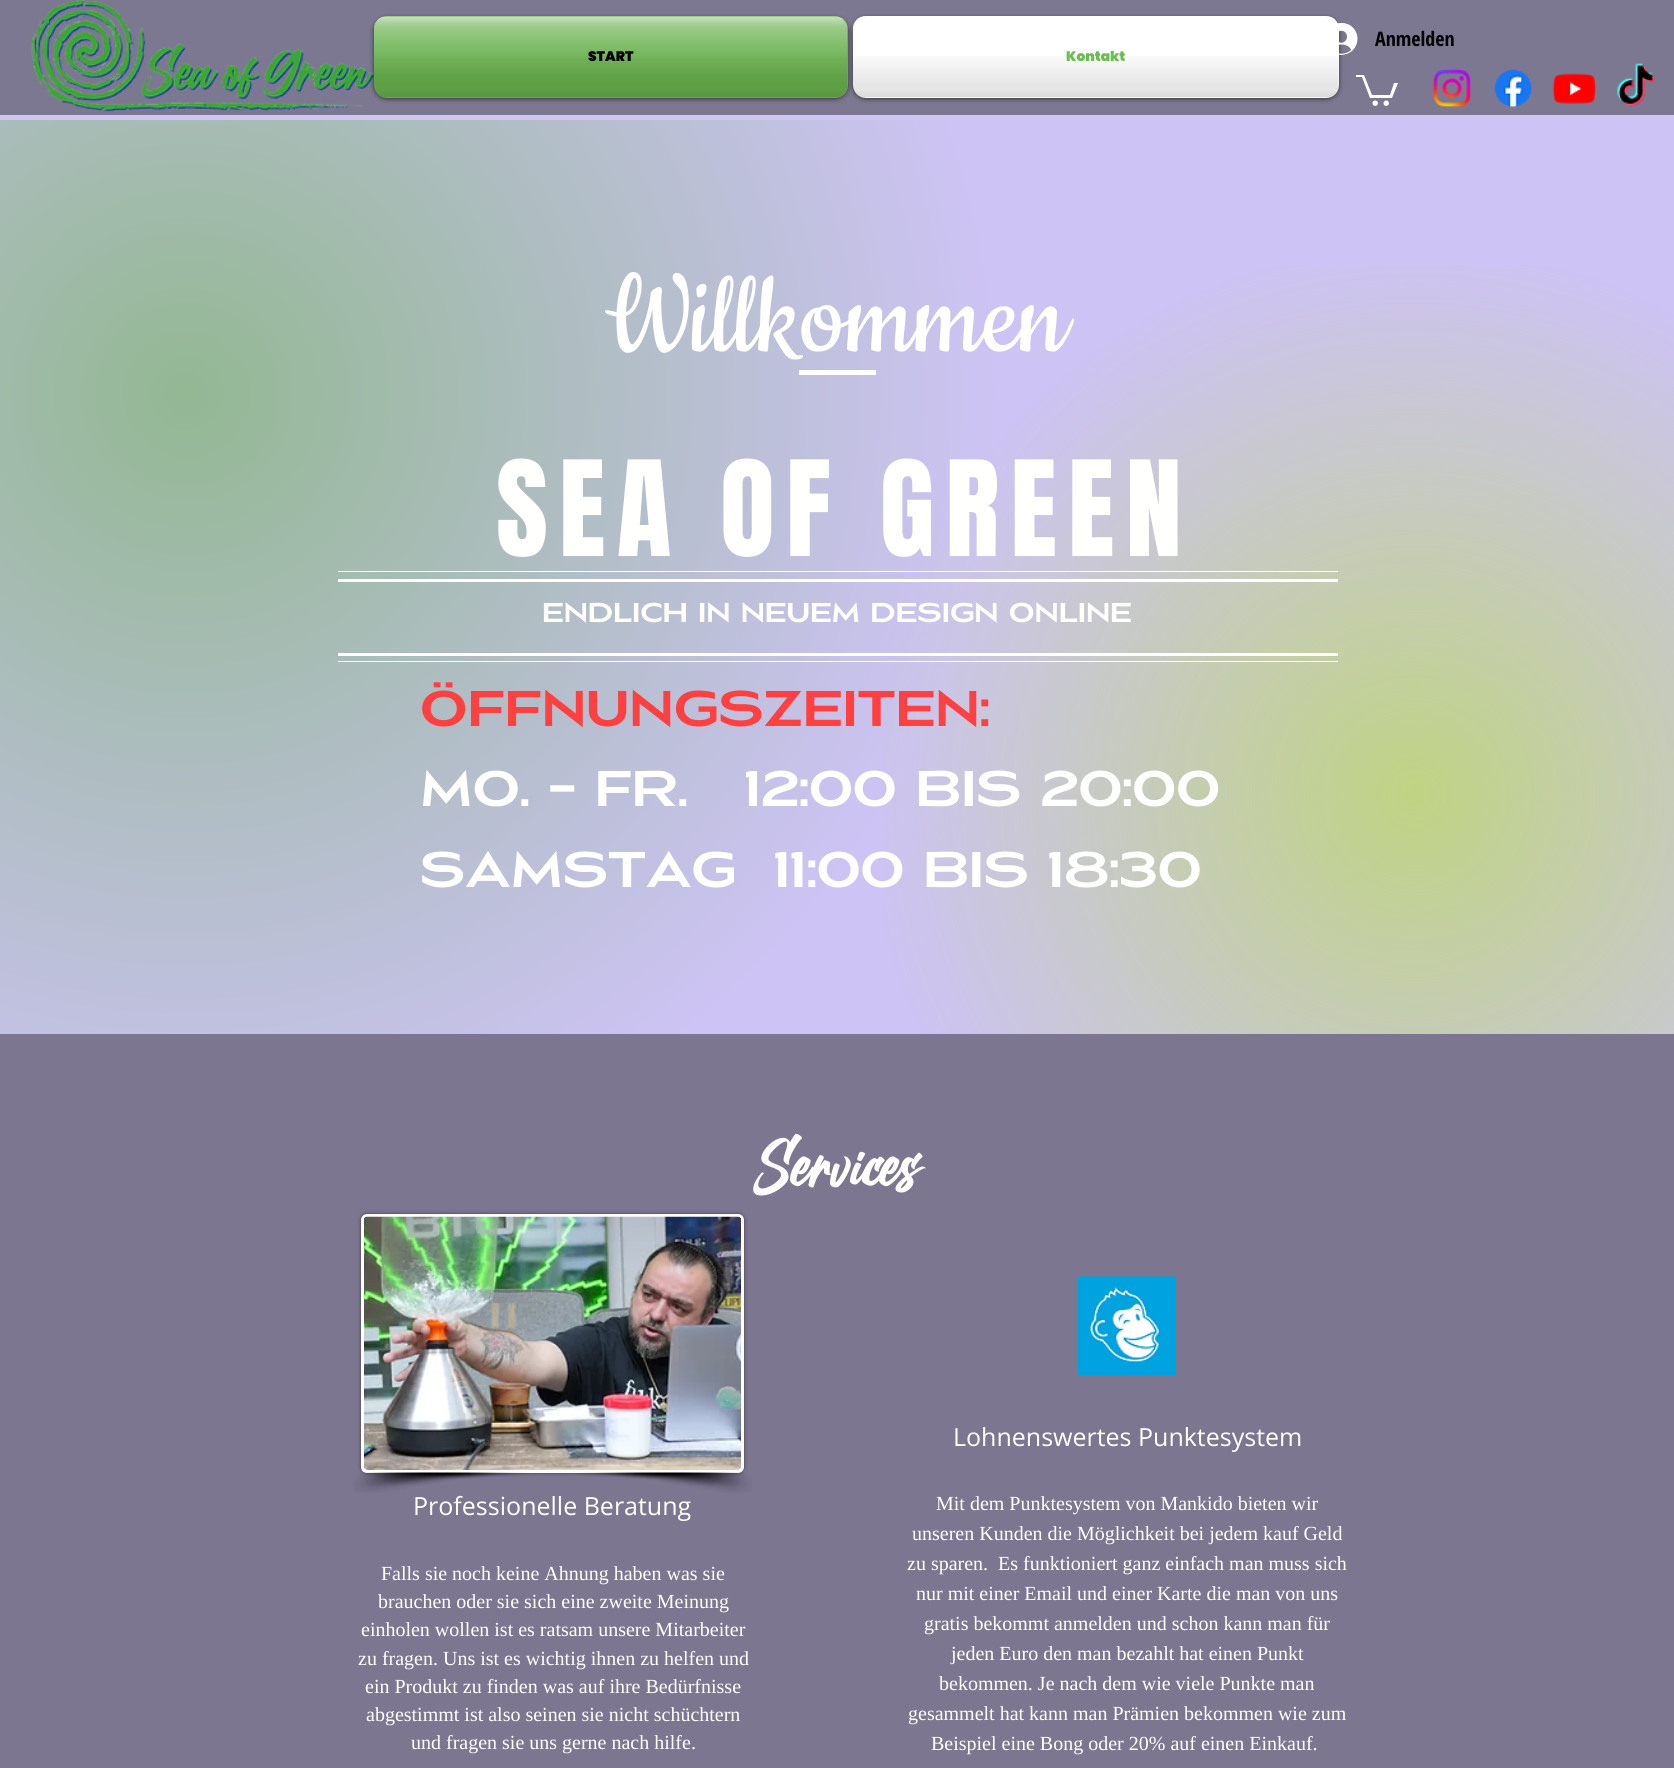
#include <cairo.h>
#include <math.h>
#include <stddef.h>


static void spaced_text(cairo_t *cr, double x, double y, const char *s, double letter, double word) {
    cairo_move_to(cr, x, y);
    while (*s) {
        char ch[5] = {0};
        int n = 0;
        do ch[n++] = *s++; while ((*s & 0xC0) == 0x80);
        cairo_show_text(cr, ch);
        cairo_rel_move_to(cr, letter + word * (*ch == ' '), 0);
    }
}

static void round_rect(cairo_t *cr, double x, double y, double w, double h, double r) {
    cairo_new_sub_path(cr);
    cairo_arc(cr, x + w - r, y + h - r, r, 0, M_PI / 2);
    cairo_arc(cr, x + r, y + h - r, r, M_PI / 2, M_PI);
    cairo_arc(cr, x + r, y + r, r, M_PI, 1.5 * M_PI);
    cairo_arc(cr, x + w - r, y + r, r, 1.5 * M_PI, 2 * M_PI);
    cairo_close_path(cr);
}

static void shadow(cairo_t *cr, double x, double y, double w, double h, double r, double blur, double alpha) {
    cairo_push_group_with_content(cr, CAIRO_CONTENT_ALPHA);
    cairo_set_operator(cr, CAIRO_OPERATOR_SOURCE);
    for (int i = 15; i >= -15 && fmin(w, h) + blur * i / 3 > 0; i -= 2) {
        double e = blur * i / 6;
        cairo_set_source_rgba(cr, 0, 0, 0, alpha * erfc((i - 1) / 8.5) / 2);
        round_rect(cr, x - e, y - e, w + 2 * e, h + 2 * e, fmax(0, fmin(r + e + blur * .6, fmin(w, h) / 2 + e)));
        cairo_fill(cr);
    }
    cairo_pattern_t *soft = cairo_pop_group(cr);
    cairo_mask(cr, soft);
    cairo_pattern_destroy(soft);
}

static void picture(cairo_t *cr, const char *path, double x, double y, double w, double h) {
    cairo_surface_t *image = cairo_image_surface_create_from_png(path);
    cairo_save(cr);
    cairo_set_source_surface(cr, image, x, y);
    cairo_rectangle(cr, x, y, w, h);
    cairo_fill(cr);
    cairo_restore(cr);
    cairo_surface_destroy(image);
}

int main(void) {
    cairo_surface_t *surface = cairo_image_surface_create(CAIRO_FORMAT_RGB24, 1674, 1768);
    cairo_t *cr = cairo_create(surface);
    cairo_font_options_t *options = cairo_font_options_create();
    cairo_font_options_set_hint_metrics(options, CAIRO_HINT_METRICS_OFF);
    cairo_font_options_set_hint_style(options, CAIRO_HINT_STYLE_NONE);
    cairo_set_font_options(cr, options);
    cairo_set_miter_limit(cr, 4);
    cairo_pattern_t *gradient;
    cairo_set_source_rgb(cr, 0.812, 0.78, 0.949);
    cairo_paint(cr);
    cairo_set_source_rgb(cr, 0.49, 0.471, 0.569);
    cairo_rectangle(cr, 0, 0, 1674, 115);
    cairo_fill(cr);
    picture(cr, "img1.png", 31, 0, 343, 112);
    cairo_set_source_rgb(cr, 0, 0, 0);
    shadow(cr, 374, 18, 474, 81, 13, 2.5, 0.6);
    cairo_set_source_rgb(cr, 0.408, 0.69, 0.302);
    round_rect(cr, 374, 16, 474, 82, 13);
    cairo_fill(cr);
    picture(cr, "img3.png", 374, 16, 474, 57);
    picture(cr, "img4.png", 374, 56, 474, 42);
    cairo_set_source_rgb(cr, 0, 0, 0);
    shadow(cr, 853, 18, 486, 81, 13, 2.5, 0.6);
    cairo_set_source_rgb(cr, 1, 1, 1);
    round_rect(cr, 853, 16, 486, 82, 13);
    cairo_fill(cr);
    picture(cr, "img5.png", 852, 16, 487, 37);
    picture(cr, "img2.png", 1337, 23, 21, 32);
    cairo_select_font_face(cr, "Open Sans Condensed", CAIRO_FONT_SLANT_NORMAL, CAIRO_FONT_WEIGHT_BOLD);
    cairo_set_font_size(cr, 20);
    cairo_set_source_rgb(cr, 0, 0, 0);
    cairo_move_to(cr, 1375, 46);
    cairo_show_text(cr, "Anmelden");
    cairo_select_font_face(cr, "Poppins Black", CAIRO_FONT_SLANT_NORMAL, CAIRO_FONT_WEIGHT_NORMAL);
    cairo_set_font_size(cr, 13.75);
    cairo_move_to(cr, 588, 61);
    cairo_show_text(cr, "START");
    picture(cr, "img6.png", 853, 56, 486, 42);
    cairo_set_source_rgb(cr, 0.424, 0.737, 0.322);
    cairo_move_to(cr, 1066, 61);
    cairo_show_text(cr, "Kontakt");
    cairo_set_source_rgb(cr, 1, 1, 1);
    cairo_new_path(cr);
    cairo_move_to(cr, 1398, 83);
    cairo_line_to(cr, 1392, 98);
    cairo_line_to(cr, 1370, 98);
    cairo_line_to(cr, 1362, 77);
    cairo_line_to(cr, 1356, 77);
    cairo_line_to(cr, 1356, 75);
    cairo_line_to(cr, 1364, 75);
    cairo_line_to(cr, 1372, 95);
    cairo_line_to(cr, 1390, 95);
    cairo_line_to(cr, 1394, 83);
    cairo_fill(cr);
    cairo_arc(cr, 1386.2, 103.2, 2.7, 0, 2 * M_PI);
    cairo_fill(cr);
    cairo_arc(cr, 1375.2, 103.2, 2.7, 0, 2 * M_PI);
    cairo_fill(cr);
    picture(cr, "img7.png", 1432, 68, 40, 40);
    picture(cr, "img8.png", 1493, 69, 40, 39);
    picture(cr, "img9.png", 1552, 73, 44, 31);
    picture(cr, "img10.png", 1616, 63, 39, 44);
    gradient = cairo_pattern_create_radial(187, 394, 0, 187, 394, 1620);
    cairo_pattern_add_color_stop_rgba(gradient, 0, 0.576, 0.722, 0.576, 1);
    cairo_pattern_add_color_stop_rgba(gradient, 0.5, 0.804, 0.765, 0.957, 1);
    cairo_set_source(cr, gradient);
    cairo_pattern_destroy(gradient);
    cairo_rectangle(cr, 0, 120, 1674, 914);
    cairo_fill(cr);
    gradient = cairo_pattern_create_radial(1414, 795, 0, 1414, 795, 1567);
    cairo_pattern_add_color_stop_rgba(gradient, 0, 0.729, 0.855, 0.333, 0.71);
    cairo_pattern_add_color_stop_rgba(gradient, 0.35, 0.729, 0.855, 0.333, 0);
    cairo_set_source(cr, gradient);
    cairo_pattern_destroy(gradient);
    cairo_rectangle(cr, 882, 265, 792, 769);
    cairo_fill(cr);
    cairo_select_font_face(cr, "Cookie", CAIRO_FONT_SLANT_NORMAL, CAIRO_FONT_WEIGHT_NORMAL);
    cairo_set_font_size(cr, 126);
    cairo_set_source_rgb(cr, 1, 1, 0.996);
    cairo_move_to(cr, 605, 351);
    cairo_show_text(cr, "Willkommen");
    cairo_rectangle(cr, 799, 370, 77, 5);
    cairo_fill(cr);
    cairo_select_font_face(cr, "Anton", CAIRO_FONT_SLANT_NORMAL, CAIRO_FONT_WEIGHT_NORMAL);
    cairo_set_font_size(cr, 112.5);
    spaced_text(cr, 496, 556, "SEA OF GREEN", 11.25, 0);
    cairo_set_source_rgb(cr, 1, 1, 1);
    cairo_rectangle(cr, 338, 571, 1000, 1);
    cairo_fill(cr);
    cairo_rectangle(cr, 338, 579, 1000, 3);
    cairo_fill(cr);
    cairo_select_font_face(cr, "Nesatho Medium", CAIRO_FONT_SLANT_NORMAL, CAIRO_FONT_WEIGHT_NORMAL);
    cairo_set_font_size(cr, 31.25);
    cairo_set_source_rgb(cr, 1, 1, 0.996);
    cairo_move_to(cr, 542, 622);
    cairo_show_text(cr, "Endlich in neuem Design online");
    cairo_set_source_rgb(cr, 1, 1, 1);
    cairo_rectangle(cr, 338, 653, 1000, 3);
    cairo_fill(cr);
    cairo_rectangle(cr, 338, 661, 1000, 1);
    cairo_fill(cr);
    cairo_set_font_size(cr, 57.5);
    cairo_set_source_rgb(cr, 1, 0.251, 0.251);
    cairo_move_to(cr, 420, 726);
    cairo_show_text(cr, "Öffnungszeiten:");
    cairo_set_source_rgb(cr, 1, 1, 0.996);
    cairo_move_to(cr, 420, 806);
    cairo_show_text(cr, "Mo. - fr.   12:00 bis 20:00");
    cairo_move_to(cr, 420, 887);
    cairo_show_text(cr, "Samstag  11:00 bis 18:30");
    cairo_set_source_rgb(cr, 0.49, 0.463, 0.569);
    cairo_rectangle(cr, 0, 1034, 1674, 734);
    cairo_fill(cr);
    cairo_select_font_face(cr, "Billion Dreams", CAIRO_FONT_SLANT_NORMAL, CAIRO_FONT_WEIGHT_NORMAL);
    cairo_set_font_size(cr, 70);
    cairo_set_source_rgb(cr, 1, 1, 0.996);
    cairo_move_to(cr, 753, 1191);
    cairo_show_text(cr, "Services");
    cairo_set_source_rgb(cr, 0, 0, 0);
    shadow(cr, 361, 1214, 383, 259, 6, 2, 0.5);
    cairo_set_source_rgb(cr, 1, 1, 1);
    round_rect(cr, 362.5, 1215.5, 380, 256, 4.5);
    cairo_fill_preserve(cr);
    cairo_set_line_width(cr, 3);
    cairo_stroke(cr);
    picture(cr, "img11.png", 364, 1216, 377, 254);
    picture(cr, "img12.png", 353, 1472, 176, 21);
    picture(cr, "img13.png", 576, 1472, 176, 21);
    picture(cr, "img14.png", 1077, 1276, 100, 99);
    cairo_select_font_face(cr, "Open Sans", CAIRO_FONT_SLANT_NORMAL, CAIRO_FONT_WEIGHT_NORMAL);
    cairo_set_font_size(cr, 25);
    cairo_set_source_rgb(cr, 1, 1, 0.996);
    cairo_move_to(cr, 953, 1446);
    cairo_show_text(cr, "Lohnenswertes Punktesystem");
    cairo_move_to(cr, 413, 1515);
    cairo_show_text(cr, "Professionelle Beratung");
    cairo_select_font_face(cr, "Liberation Serif", CAIRO_FONT_SLANT_NORMAL, CAIRO_FONT_WEIGHT_NORMAL);
    cairo_set_font_size(cr, 20);
    cairo_move_to(cr, 936, 1510);
    cairo_show_text(cr, "Mit dem Punktesystem von Mankido bieten wir");
    cairo_move_to(cr, 912, 1540);
    cairo_show_text(cr, "unseren Kunden die Möglichkeit bei jedem kauf Geld");
    cairo_move_to(cr, 907, 1570);
    cairo_show_text(cr, "zu sparen.  Es funktioniert ganz einfach man muss sich");
    cairo_move_to(cr, 916, 1600);
    cairo_show_text(cr, "nur mit einer Email und einer Karte die man von uns");
    cairo_move_to(cr, 924, 1630);
    cairo_show_text(cr, "gratis bekommt anmelden und schon kann man für");
    cairo_move_to(cr, 951, 1660);
    cairo_show_text(cr, "jeden Euro den man bezahlt hat einen Punkt");
    cairo_move_to(cr, 939, 1690);
    cairo_show_text(cr, "bekommen. Je nach dem wie viele Punkte man");
    cairo_move_to(cr, 908, 1720);
    cairo_show_text(cr, "gesammelt hat kann man Prämien bekommen wie zum");
    cairo_move_to(cr, 931, 1750);
    cairo_show_text(cr, "Beispiel eine Bong oder 20% auf einen Einkauf.");
    cairo_move_to(cr, 381, 1580);
    cairo_show_text(cr, "Falls sie noch keine Ahnung haben was sie");
    cairo_move_to(cr, 378, 1608);
    cairo_show_text(cr, "brauchen oder sie sich eine zweite Meinung");
    cairo_move_to(cr, 361, 1636);
    cairo_show_text(cr, "einholen wollen ist es ratsam unsere Mitarbeiter");
    cairo_move_to(cr, 358, 1665);
    cairo_show_text(cr, "zu fragen. Uns ist es wichtig ihnen zu helfen und");
    cairo_move_to(cr, 365, 1693);
    cairo_show_text(cr, "ein Produkt zu finden was auf ihre Bedürfnisse");
    cairo_move_to(cr, 366, 1721);
    cairo_show_text(cr, "abgestimmt ist also seinen sie nicht schüchtern");
    cairo_move_to(cr, 411, 1749);
    cairo_show_text(cr, "und fragen sie uns gerne nach hilfe.");
    cairo_surface_write_to_png(surface, "page.png");
    cairo_font_options_destroy(options);
    cairo_destroy(cr);
    cairo_surface_destroy(surface);
    return 0;
}
